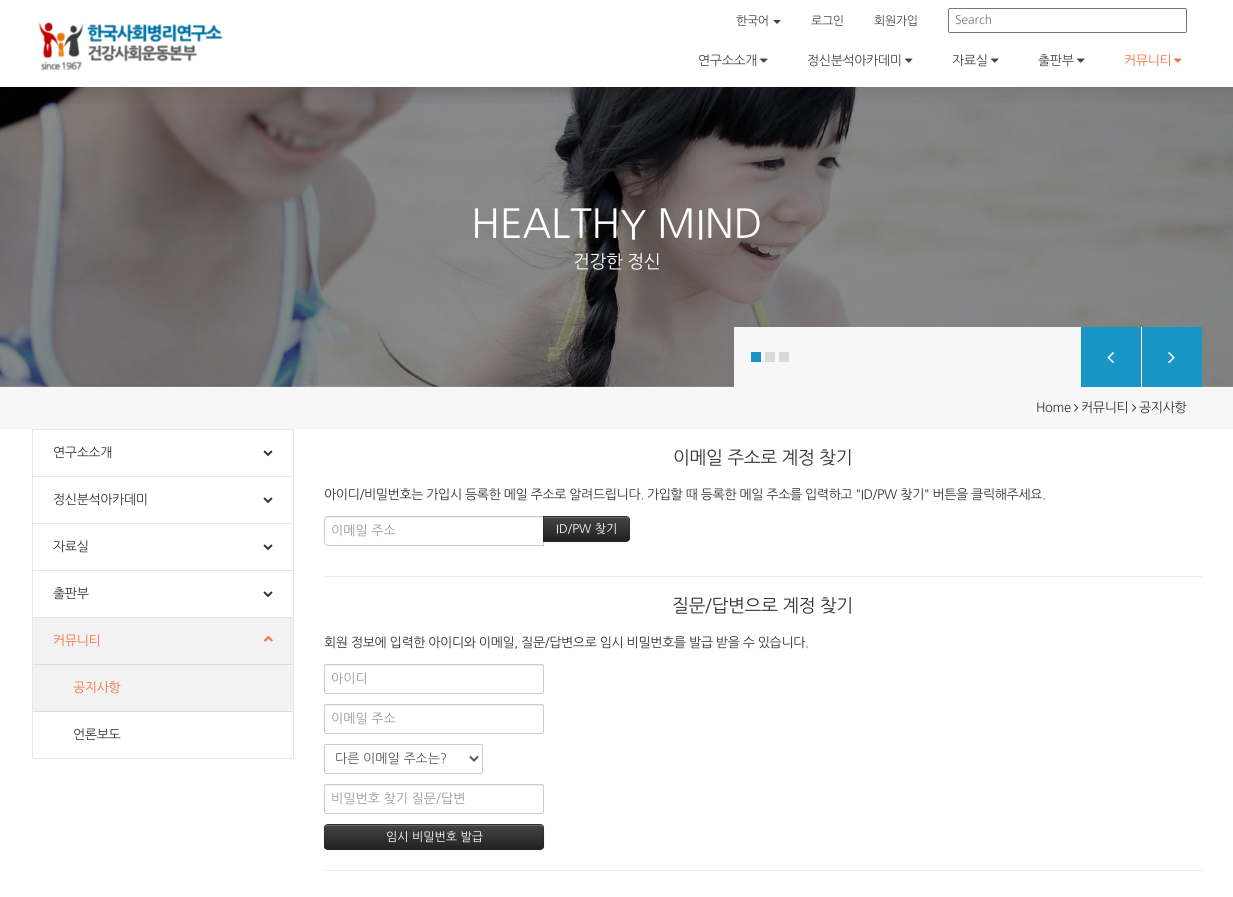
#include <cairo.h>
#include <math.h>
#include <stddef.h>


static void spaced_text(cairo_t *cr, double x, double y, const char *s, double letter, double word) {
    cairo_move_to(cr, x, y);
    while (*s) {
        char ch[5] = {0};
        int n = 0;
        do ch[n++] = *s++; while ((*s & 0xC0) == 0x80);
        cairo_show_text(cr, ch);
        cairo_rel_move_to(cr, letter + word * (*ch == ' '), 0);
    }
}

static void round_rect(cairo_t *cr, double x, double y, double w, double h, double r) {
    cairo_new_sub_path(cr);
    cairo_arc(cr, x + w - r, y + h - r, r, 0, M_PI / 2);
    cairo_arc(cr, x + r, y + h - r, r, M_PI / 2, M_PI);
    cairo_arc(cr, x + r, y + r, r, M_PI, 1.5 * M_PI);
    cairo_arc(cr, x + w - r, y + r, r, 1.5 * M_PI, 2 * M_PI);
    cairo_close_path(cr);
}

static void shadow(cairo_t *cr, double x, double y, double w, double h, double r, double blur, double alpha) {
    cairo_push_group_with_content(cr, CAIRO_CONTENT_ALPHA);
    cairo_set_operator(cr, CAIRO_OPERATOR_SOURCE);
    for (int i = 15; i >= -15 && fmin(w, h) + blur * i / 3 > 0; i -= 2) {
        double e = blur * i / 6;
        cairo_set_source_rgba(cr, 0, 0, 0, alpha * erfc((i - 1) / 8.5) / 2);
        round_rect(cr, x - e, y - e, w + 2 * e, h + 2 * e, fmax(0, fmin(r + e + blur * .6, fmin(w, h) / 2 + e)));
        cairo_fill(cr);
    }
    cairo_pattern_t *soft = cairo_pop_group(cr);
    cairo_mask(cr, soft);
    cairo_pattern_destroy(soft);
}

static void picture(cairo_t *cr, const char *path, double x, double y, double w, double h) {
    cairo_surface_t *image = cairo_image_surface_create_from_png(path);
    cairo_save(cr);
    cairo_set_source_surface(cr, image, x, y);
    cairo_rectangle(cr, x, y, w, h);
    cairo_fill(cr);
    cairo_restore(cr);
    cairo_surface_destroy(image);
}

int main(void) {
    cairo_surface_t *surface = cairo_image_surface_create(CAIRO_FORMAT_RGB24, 1233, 897);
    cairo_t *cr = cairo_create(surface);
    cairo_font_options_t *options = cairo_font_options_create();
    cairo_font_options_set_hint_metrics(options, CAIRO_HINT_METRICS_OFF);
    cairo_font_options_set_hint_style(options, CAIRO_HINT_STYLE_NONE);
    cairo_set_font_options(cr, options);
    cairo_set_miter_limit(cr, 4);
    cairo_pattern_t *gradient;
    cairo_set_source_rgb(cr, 1, 1, 1);
    cairo_paint(cr);
    picture(cr, "img4.png", 0, 87, 1233, 300);
    cairo_save(cr);
    cairo_rectangle(cr, 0, 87, 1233, 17);
    cairo_clip(cr);
    cairo_set_source_rgb(cr, 0, 0, 0);
    shadow(cr, 2, 2, 1229, 83, 0, 15, 0.2);
    cairo_restore(cr);
    picture(cr, "img1.png", 38, 22, 185, 48);
    cairo_select_font_face(cr, "NanumGothic", CAIRO_FONT_SLANT_NORMAL, CAIRO_FONT_WEIGHT_NORMAL);
    cairo_set_font_size(cr, 12);
    cairo_set_source_rgb(cr, 0.267, 0.267, 0.267);
    spaced_text(cr, 736, 25, "한국어", -0.4, 0);
    cairo_new_path(cr);
    cairo_move_to(cr, 773, 20);
    cairo_line_to(cr, 781, 20);
    cairo_line_to(cr, 777, 24);
    cairo_close_path(cr);
    cairo_fill(cr);
    spaced_text(cr, 811, 25, "로그인", -0.4, 0);
    spaced_text(cr, 874, 25, "회원가입", -0.4, 0);
    round_rect(cr, 948.5, 8.5, 238, 24, 1.5);
    cairo_set_source_rgb(cr, 0.463, 0.463, 0.463);
    cairo_set_line_width(cr, 1);
    cairo_stroke(cr);
    cairo_set_source_rgb(cr, 0.459, 0.459, 0.459);
    cairo_move_to(cr, 955, 24);
    cairo_show_text(cr, "Search");
    cairo_set_font_size(cr, 13);
    cairo_set_source_rgb(cr, 0.267, 0.267, 0.267);
    spaced_text(cr, 698, 65, "연구소소개", -0.4, 0);
    picture(cr, "img2.png", 760, 58, 8, 5);
    spaced_text(cr, 807, 65, "정신분석아카데미", -0.4, 0);
    picture(cr, "img2.png", 905, 58, 8, 5);
    spaced_text(cr, 952, 65, "자료실", -0.4, 0);
    picture(cr, "img2.png", 991, 58, 8, 5);
    spaced_text(cr, 1038, 65, "출판부", -0.4, 0);
    picture(cr, "img2.png", 1077, 58, 8, 5);
    cairo_set_source_rgb(cr, 0.949, 0.447, 0.259);
    spaced_text(cr, 1124, 65, "커뮤니티", -0.4, 0);
    picture(cr, "img3.png", 1174, 58, 8, 5);
    cairo_set_font_size(cr, 40);
    cairo_set_source_rgb(cr, 1, 1, 1);
    spaced_text(cr, 471, 238, "HEALTHY MIND", -0.4, 0);
    cairo_set_font_size(cr, 18);
    spaced_text(cr, 573, 268, "건강한 정신", -0.4, 0);
    cairo_set_source_rgb(cr, 0.965, 0.965, 0.965);
    cairo_rectangle(cr, 734, 327, 408, 60);
    cairo_fill(cr);
    cairo_set_source_rgb(cr, 0.098, 0.588, 0.773);
    cairo_rectangle(cr, 751, 352, 10, 10);
    cairo_fill(cr);
    cairo_set_source_rgb(cr, 0.851, 0.851, 0.851);
    cairo_rectangle(cr, 765, 352, 10, 10);
    cairo_fill(cr);
    cairo_rectangle(cr, 779, 352, 10, 10);
    cairo_fill(cr);
    cairo_set_source_rgb(cr, 0.098, 0.588, 0.773);
    cairo_rectangle(cr, 1081, 327, 60, 60);
    cairo_fill(cr);
    picture(cr, "img5.png", 1107, 352, 7, 12);
    cairo_rectangle(cr, 1142, 327, 60, 60);
    cairo_fill(cr);
    picture(cr, "img6.png", 1168, 352, 7, 12);
    cairo_set_source_rgb(cr, 0.965, 0.965, 0.965);
    cairo_rectangle(cr, 0, 387, 1233, 42);
    cairo_fill(cr);
    cairo_set_font_size(cr, 13);
    cairo_set_source_rgb(cr, 0.2, 0.2, 0.2);
    spaced_text(cr, 1036, 412, "Home", -0.4, 0);
    picture(cr, "img7.png", 1074, 404, 5, 8);
    spaced_text(cr, 1081, 412, "커뮤니티", -0.4, 0);
    picture(cr, "img7.png", 1132, 404, 5, 8);
    spaced_text(cr, 1139, 412, "공지사항", -0.4, 0);
    cairo_set_source_rgb(cr, 0.902, 0.902, 0.902);
    cairo_new_path(cr);
    cairo_move_to(cr, 32, 429);
    cairo_line_to(cr, 294, 429);
    cairo_line_to(cr, 293, 430);
    cairo_line_to(cr, 33, 430);
    cairo_close_path(cr);
    cairo_fill(cr);
    cairo_set_source_rgba(cr, 0, 0, 0, 0.1);
    cairo_new_path(cr);
    cairo_move_to(cr, 294, 429);
    cairo_line_to(cr, 294, 759);
    cairo_line_to(cr, 293, 759);
    cairo_line_to(cr, 293, 430);
    cairo_close_path(cr);
    cairo_fill(cr);
    cairo_new_path(cr);
    cairo_move_to(cr, 32, 759);
    cairo_line_to(cr, 32, 429);
    cairo_line_to(cr, 33, 430);
    cairo_line_to(cr, 33, 759);
    cairo_close_path(cr);
    cairo_fill(cr);
    cairo_set_source_rgb(cr, 0.902, 0.902, 0.902);
    cairo_rectangle(cr, 33, 476, 260, 1);
    cairo_fill(cr);
    cairo_set_source_rgb(cr, 0.2, 0.2, 0.2);
    spaced_text(cr, 53, 457, "연구소소개", -0.4, 0);
    picture(cr, "img8.png", 263, 450, 10, 7);
    cairo_set_source_rgb(cr, 0.902, 0.902, 0.902);
    cairo_rectangle(cr, 33, 523, 260, 1);
    cairo_fill(cr);
    cairo_set_source_rgb(cr, 0.2, 0.2, 0.2);
    spaced_text(cr, 53, 504, "정신분석아카데미", -0.4, 0);
    picture(cr, "img8.png", 263, 497, 10, 7);
    cairo_set_source_rgb(cr, 0.902, 0.902, 0.902);
    cairo_rectangle(cr, 33, 570, 260, 1);
    cairo_fill(cr);
    cairo_set_source_rgb(cr, 0.2, 0.2, 0.2);
    spaced_text(cr, 53, 551, "자료실", -0.4, 0);
    picture(cr, "img8.png", 263, 544, 10, 7);
    cairo_set_source_rgb(cr, 0.902, 0.902, 0.902);
    cairo_rectangle(cr, 33, 617, 260, 1);
    cairo_fill(cr);
    cairo_set_source_rgb(cr, 0.2, 0.2, 0.2);
    spaced_text(cr, 53, 598, "출판부", -0.4, 0);
    picture(cr, "img8.png", 263, 591, 10, 7);
    cairo_set_source_rgb(cr, 0.949, 0.949, 0.949);
    cairo_rectangle(cr, 33, 618, 260, 46);
    cairo_fill(cr);
    cairo_set_source_rgb(cr, 0.855, 0.855, 0.855);
    cairo_rectangle(cr, 33, 664, 260, 1);
    cairo_fill(cr);
    cairo_set_source_rgb(cr, 0.949, 0.447, 0.259);
    spaced_text(cr, 53, 645, "커뮤니티", -0.4, 0);
    picture(cr, "img9.png", 263, 635, 10, 7);
    cairo_set_source_rgb(cr, 0.949, 0.949, 0.949);
    cairo_rectangle(cr, 33, 665, 260, 46);
    cairo_fill(cr);
    cairo_set_source_rgb(cr, 0.855, 0.855, 0.855);
    cairo_rectangle(cr, 33, 711, 260, 1);
    cairo_fill(cr);
    cairo_set_source_rgb(cr, 0.949, 0.447, 0.259);
    spaced_text(cr, 73, 692, "공지사항", -0.4, 0);
    cairo_set_source_rgb(cr, 0.902, 0.902, 0.902);
    cairo_rectangle(cr, 33, 758, 260, 1);
    cairo_fill(cr);
    cairo_set_source_rgb(cr, 0.2, 0.2, 0.2);
    spaced_text(cr, 73, 739, "언론보도", -0.4, 0);
    cairo_set_font_size(cr, 18);
    spaced_text(cr, 673, 464, "이메일 주소로 계정 찾기", -0.4, 0);
    cairo_set_font_size(cr, 13);
    spaced_text(cr, 324, 499, "아이디/비밀번호는 가입시 등록한 메일 주소로 알려드립니다. 가입할 때 등록한 메일 주소를 입력하고 \"ID/PW 찾기\" 버튼을 클릭해주세요.", -0.4, 0);
    cairo_set_source_rgb(cr, 0.925, 0.925, 0.925);
    cairo_new_path(cr);
    cairo_move_to(cr, 328, 518);
    cairo_line_to(cr, 543, 518);
    cairo_line_to(cr, 543, 517);
    cairo_line_to(cr, 328, 517);
    cairo_curve_to(cr, 326, 517, 325, 518, 325, 520);
    cairo_line_to(cr, 325, 521);
    cairo_curve_to(cr, 325, 519, 326, 518, 328, 518);
    cairo_close_path(cr);
    cairo_fill(cr);
    cairo_new_path(cr);
    cairo_move_to(cr, 328, 516.5);
    cairo_line_to(cr, 543.5, 516.5);
    cairo_line_to(cr, 543.5, 545.5);
    cairo_line_to(cr, 328, 545.5);
    cairo_curve_to(cr, 326, 545.5, 324.5, 544, 324.5, 542);
    cairo_line_to(cr, 324.5, 520);
    cairo_curve_to(cr, 324.5, 518, 326, 516.5, 328, 516.5);
    cairo_close_path(cr);
    cairo_set_source_rgb(cr, 0.8, 0.8, 0.8);
    cairo_stroke(cr);
    cairo_set_source_rgb(cr, 0.6, 0.6, 0.6);
    cairo_move_to(cr, 331, 535);
    cairo_show_text(cr, "이메일 주소");
    cairo_set_source_rgb(cr, 0, 0, 0);
    shadow(cr, 543, 517, 87, 26, 4, 1, 0.05);
    cairo_set_source_rgb(cr, 0.212, 0.212, 0.212);
    cairo_new_path(cr);
    cairo_move_to(cr, 543, 516);
    cairo_line_to(cr, 626, 516);
    cairo_curve_to(cr, 628, 516, 630, 518, 630, 520);
    cairo_line_to(cr, 630, 538);
    cairo_curve_to(cr, 630, 540, 628, 542, 626, 542);
    cairo_line_to(cr, 543, 542);
    cairo_close_path(cr);
    cairo_fill(cr);
    cairo_save(cr);
    cairo_new_path(cr);
    cairo_move_to(cr, 543, 516);
    cairo_line_to(cr, 626, 516);
    cairo_curve_to(cr, 628, 516, 630, 518, 630, 520);
    cairo_line_to(cr, 630, 538);
    cairo_curve_to(cr, 630, 540, 628, 542, 626, 542);
    cairo_line_to(cr, 543, 542);
    cairo_close_path(cr);
    cairo_clip(cr);
    gradient = cairo_pattern_create_linear(587, 517, 587, 541);
    cairo_pattern_add_color_stop_rgba(gradient, 0, 0.267, 0.267, 0.267, 1);
    cairo_pattern_add_color_stop_rgba(gradient, 1, 0.133, 0.133, 0.133, 1);
    cairo_set_source(cr, gradient);
    cairo_pattern_destroy(gradient);
    cairo_rectangle(cr, 543, 517, 87, 24);
    cairo_fill(cr);
    cairo_restore(cr);
    cairo_set_source_rgb(cr, 0.412, 0.412, 0.412);
    cairo_new_path(cr);
    cairo_move_to(cr, 544, 518);
    cairo_line_to(cr, 626, 518);
    cairo_curve_to(cr, 628, 518, 629, 519, 629, 521);
    cairo_line_to(cr, 629, 520);
    cairo_curve_to(cr, 629, 518, 628, 517, 626, 517);
    cairo_line_to(cr, 544, 517);
    cairo_close_path(cr);
    cairo_fill(cr);
    cairo_set_source_rgba(cr, 0, 0, 0, 0.1);
    cairo_new_path(cr);
    cairo_move_to(cr, 543, 516);
    cairo_line_to(cr, 544, 517);
    cairo_line_to(cr, 626, 517);
    cairo_line_to(cr, 628, 518);
    cairo_line_to(cr, 629, 517);
    cairo_line_to(cr, 626, 516);
    cairo_close_path(cr);
    cairo_fill(cr);
    cairo_new_path(cr);
    cairo_move_to(cr, 630, 538);
    cairo_line_to(cr, 630, 520);
    cairo_curve_to(cr, 630, 519, 629.5, 518, 629, 517);
    cairo_line_to(cr, 628, 518);
    cairo_curve_to(cr, 630, 519.5, 629, 527, 629, 529);
    cairo_curve_to(cr, 629, 531, 630, 538.5, 628, 540);
    cairo_line_to(cr, 629, 541);
    cairo_curve_to(cr, 629.5, 540, 630, 539, 630, 538);
    cairo_close_path(cr);
    cairo_fill(cr);
    cairo_set_source_rgba(cr, 0, 0, 0, 0.25);
    cairo_new_path(cr);
    cairo_move_to(cr, 626, 542);
    cairo_line_to(cr, 629, 541);
    cairo_line_to(cr, 628, 540);
    cairo_line_to(cr, 626, 541);
    cairo_line_to(cr, 544, 541);
    cairo_line_to(cr, 543, 542);
    cairo_close_path(cr);
    cairo_fill(cr);
    cairo_set_source_rgba(cr, 0, 0, 0, 0.1);
    cairo_new_path(cr);
    cairo_move_to(cr, 543, 516);
    cairo_line_to(cr, 543, 542);
    cairo_line_to(cr, 544, 541);
    cairo_line_to(cr, 544, 517);
    cairo_close_path(cr);
    cairo_fill(cr);
    cairo_set_font_size(cr, 12);
    cairo_set_source_rgb(cr, 1, 1, 1);
    cairo_move_to(cr, 556, 533);
    cairo_show_text(cr, "ID/PW 찾기");
    cairo_set_source_rgb(cr, 0.933, 0.933, 0.933);
    cairo_rectangle(cr, 324, 576, 878, 1);
    cairo_fill(cr);
    cairo_set_font_size(cr, 18);
    cairo_set_source_rgb(cr, 0.2, 0.2, 0.2);
    spaced_text(cr, 672, 612, "질문/답변으로 계정 찾기", -0.4, 0);
    cairo_set_font_size(cr, 13);
    spaced_text(cr, 324, 647, "회원 정보에 입력한 아이디와 이메일, 질문/답변으로 임시 비밀번호를 발급 받을 수 있습니다.", -0.4, 0);
    cairo_set_source_rgb(cr, 0.925, 0.925, 0.925);
    cairo_set_fill_rule(cr, CAIRO_FILL_RULE_EVEN_ODD);
    cairo_new_path(cr);
    cairo_move_to(cr, 326, 666);
    cairo_line_to(cr, 542, 666);
    cairo_line_to(cr, 543, 667);
    cairo_line_to(cr, 543, 665);
    cairo_line_to(cr, 326, 665);
    cairo_curve_to(cr, 325, 665, 325, 666, 325, 667);
    cairo_close_path(cr);
    cairo_move_to(cr, 543, 692);
    cairo_line_to(cr, 543, 693);
    cairo_close_path(cr);
    cairo_fill(cr);
    round_rect(cr, 324.5, 664.5, 219, 29, 1.5);
    cairo_set_source_rgb(cr, 0.8, 0.8, 0.8);
    cairo_stroke(cr);
    cairo_set_source_rgb(cr, 0.6, 0.6, 0.6);
    cairo_move_to(cr, 331, 683);
    cairo_show_text(cr, "아이디");
    cairo_set_source_rgb(cr, 0.925, 0.925, 0.925);
    cairo_new_path(cr);
    cairo_move_to(cr, 326, 706);
    cairo_line_to(cr, 542, 706);
    cairo_line_to(cr, 543, 707);
    cairo_line_to(cr, 543, 705);
    cairo_line_to(cr, 326, 705);
    cairo_curve_to(cr, 325, 705, 325, 706, 325, 707);
    cairo_close_path(cr);
    cairo_move_to(cr, 543, 732);
    cairo_line_to(cr, 543, 733);
    cairo_close_path(cr);
    cairo_fill(cr);
    round_rect(cr, 324.5, 704.5, 219, 29, 1.5);
    cairo_set_source_rgb(cr, 0.8, 0.8, 0.8);
    cairo_stroke(cr);
    cairo_set_source_rgb(cr, 0.6, 0.6, 0.6);
    cairo_move_to(cr, 331, 723);
    cairo_show_text(cr, "이메일 주소");
    round_rect(cr, 324.5, 744.5, 158, 29, 1.5);
    cairo_set_source_rgb(cr, 0.8, 0.8, 0.8);
    cairo_stroke(cr);
    cairo_new_path(cr);
    cairo_move_to(cr, 470, 756.5);
    cairo_line_to(cr, 474, 760.5);
    cairo_line_to(cr, 478, 756.5);
    cairo_set_source_rgb(cr, 0.333, 0.333, 0.333);
    cairo_set_line_width(cr, 2);
    cairo_stroke(cr);
    cairo_move_to(cr, 335, 763);
    cairo_show_text(cr, "다른 이메일 주소는?");
    cairo_set_source_rgb(cr, 0.925, 0.925, 0.925);
    cairo_new_path(cr);
    cairo_move_to(cr, 326, 786);
    cairo_line_to(cr, 542, 786);
    cairo_line_to(cr, 543, 787);
    cairo_line_to(cr, 543, 785);
    cairo_line_to(cr, 326, 785);
    cairo_curve_to(cr, 325, 785, 325, 786, 325, 787);
    cairo_close_path(cr);
    cairo_move_to(cr, 543, 812);
    cairo_line_to(cr, 543, 813);
    cairo_close_path(cr);
    cairo_fill(cr);
    round_rect(cr, 324.5, 784.5, 219, 29, 1.5);
    cairo_set_source_rgb(cr, 0.8, 0.8, 0.8);
    cairo_set_line_width(cr, 1);
    cairo_stroke(cr);
    cairo_set_source_rgb(cr, 0.6, 0.6, 0.6);
    cairo_move_to(cr, 331, 803);
    cairo_show_text(cr, "비밀번호 찾기 질문/답변");
    cairo_set_source_rgb(cr, 0, 0, 0);
    shadow(cr, 324, 825, 220, 26, 4, 1, 0.05);
    cairo_set_source_rgb(cr, 0.212, 0.212, 0.212);
    round_rect(cr, 324, 824, 220, 26, 4);
    cairo_fill(cr);
    cairo_save(cr);
    cairo_set_fill_rule(cr, CAIRO_FILL_RULE_WINDING);
    round_rect(cr, 324, 824, 220, 26, 4);
    cairo_clip(cr);
    gradient = cairo_pattern_create_linear(434, 825, 434, 849);
    cairo_pattern_add_color_stop_rgba(gradient, 0, 0.267, 0.267, 0.267, 1);
    cairo_pattern_add_color_stop_rgba(gradient, 1, 0.133, 0.133, 0.133, 1);
    cairo_set_source(cr, gradient);
    cairo_pattern_destroy(gradient);
    cairo_rectangle(cr, 324, 825, 220, 24);
    cairo_fill(cr);
    cairo_restore(cr);
    cairo_set_source_rgb(cr, 0.412, 0.412, 0.412);
    cairo_set_fill_rule(cr, CAIRO_FILL_RULE_WINDING);
    cairo_new_path(cr);
    cairo_move_to(cr, 328, 826);
    cairo_line_to(cr, 540, 826);
    cairo_curve_to(cr, 542, 826, 543, 827, 543, 829);
    cairo_line_to(cr, 543, 828);
    cairo_curve_to(cr, 543, 826, 542, 825, 540, 825);
    cairo_line_to(cr, 328, 825);
    cairo_curve_to(cr, 326, 825, 325, 826, 325, 828);
    cairo_line_to(cr, 325, 829);
    cairo_curve_to(cr, 325, 827, 326, 826, 328, 826);
    cairo_close_path(cr);
    cairo_fill(cr);
    cairo_new_path(cr);
    cairo_move_to(cr, 542.5, 848.5);
    cairo_curve_to(cr, 542, 849, 541, 849.5, 540, 849.5);
    cairo_line_to(cr, 328, 849.5);
    cairo_curve_to(cr, 327, 849.5, 326, 849, 325.5, 848.5);
    cairo_set_source_rgba(cr, 0, 0, 0, 0.25);
    cairo_stroke(cr);
    cairo_new_path(cr);
    cairo_move_to(cr, 325.5, 848.5);
    cairo_curve_to(cr, 323.5, 846.5, 324.5, 834.5, 324.5, 831);
    cairo_curve_to(cr, 324.5, 828.5, 324.5, 824.5, 328, 824.5);
    cairo_line_to(cr, 540, 824.5);
    cairo_curve_to(cr, 543.5, 824.5, 543.5, 828.5, 543.5, 831);
    cairo_curve_to(cr, 543.5, 834.5, 544.5, 846.5, 542.5, 848.5);
    cairo_set_source_rgba(cr, 0, 0, 0, 0.1);
    cairo_stroke(cr);
    cairo_set_font_size(cr, 12);
    cairo_set_source_rgb(cr, 1, 1, 1);
    cairo_move_to(cr, 386, 841);
    cairo_show_text(cr, "임시 비밀번호 발급");
    cairo_set_source_rgb(cr, 0.933, 0.933, 0.933);
    cairo_rectangle(cr, 324, 870, 878, 1);
    cairo_fill(cr);
    cairo_surface_write_to_png(surface, "page.png");
    cairo_font_options_destroy(options);
    cairo_destroy(cr);
    cairo_surface_destroy(surface);
    return 0;
}
